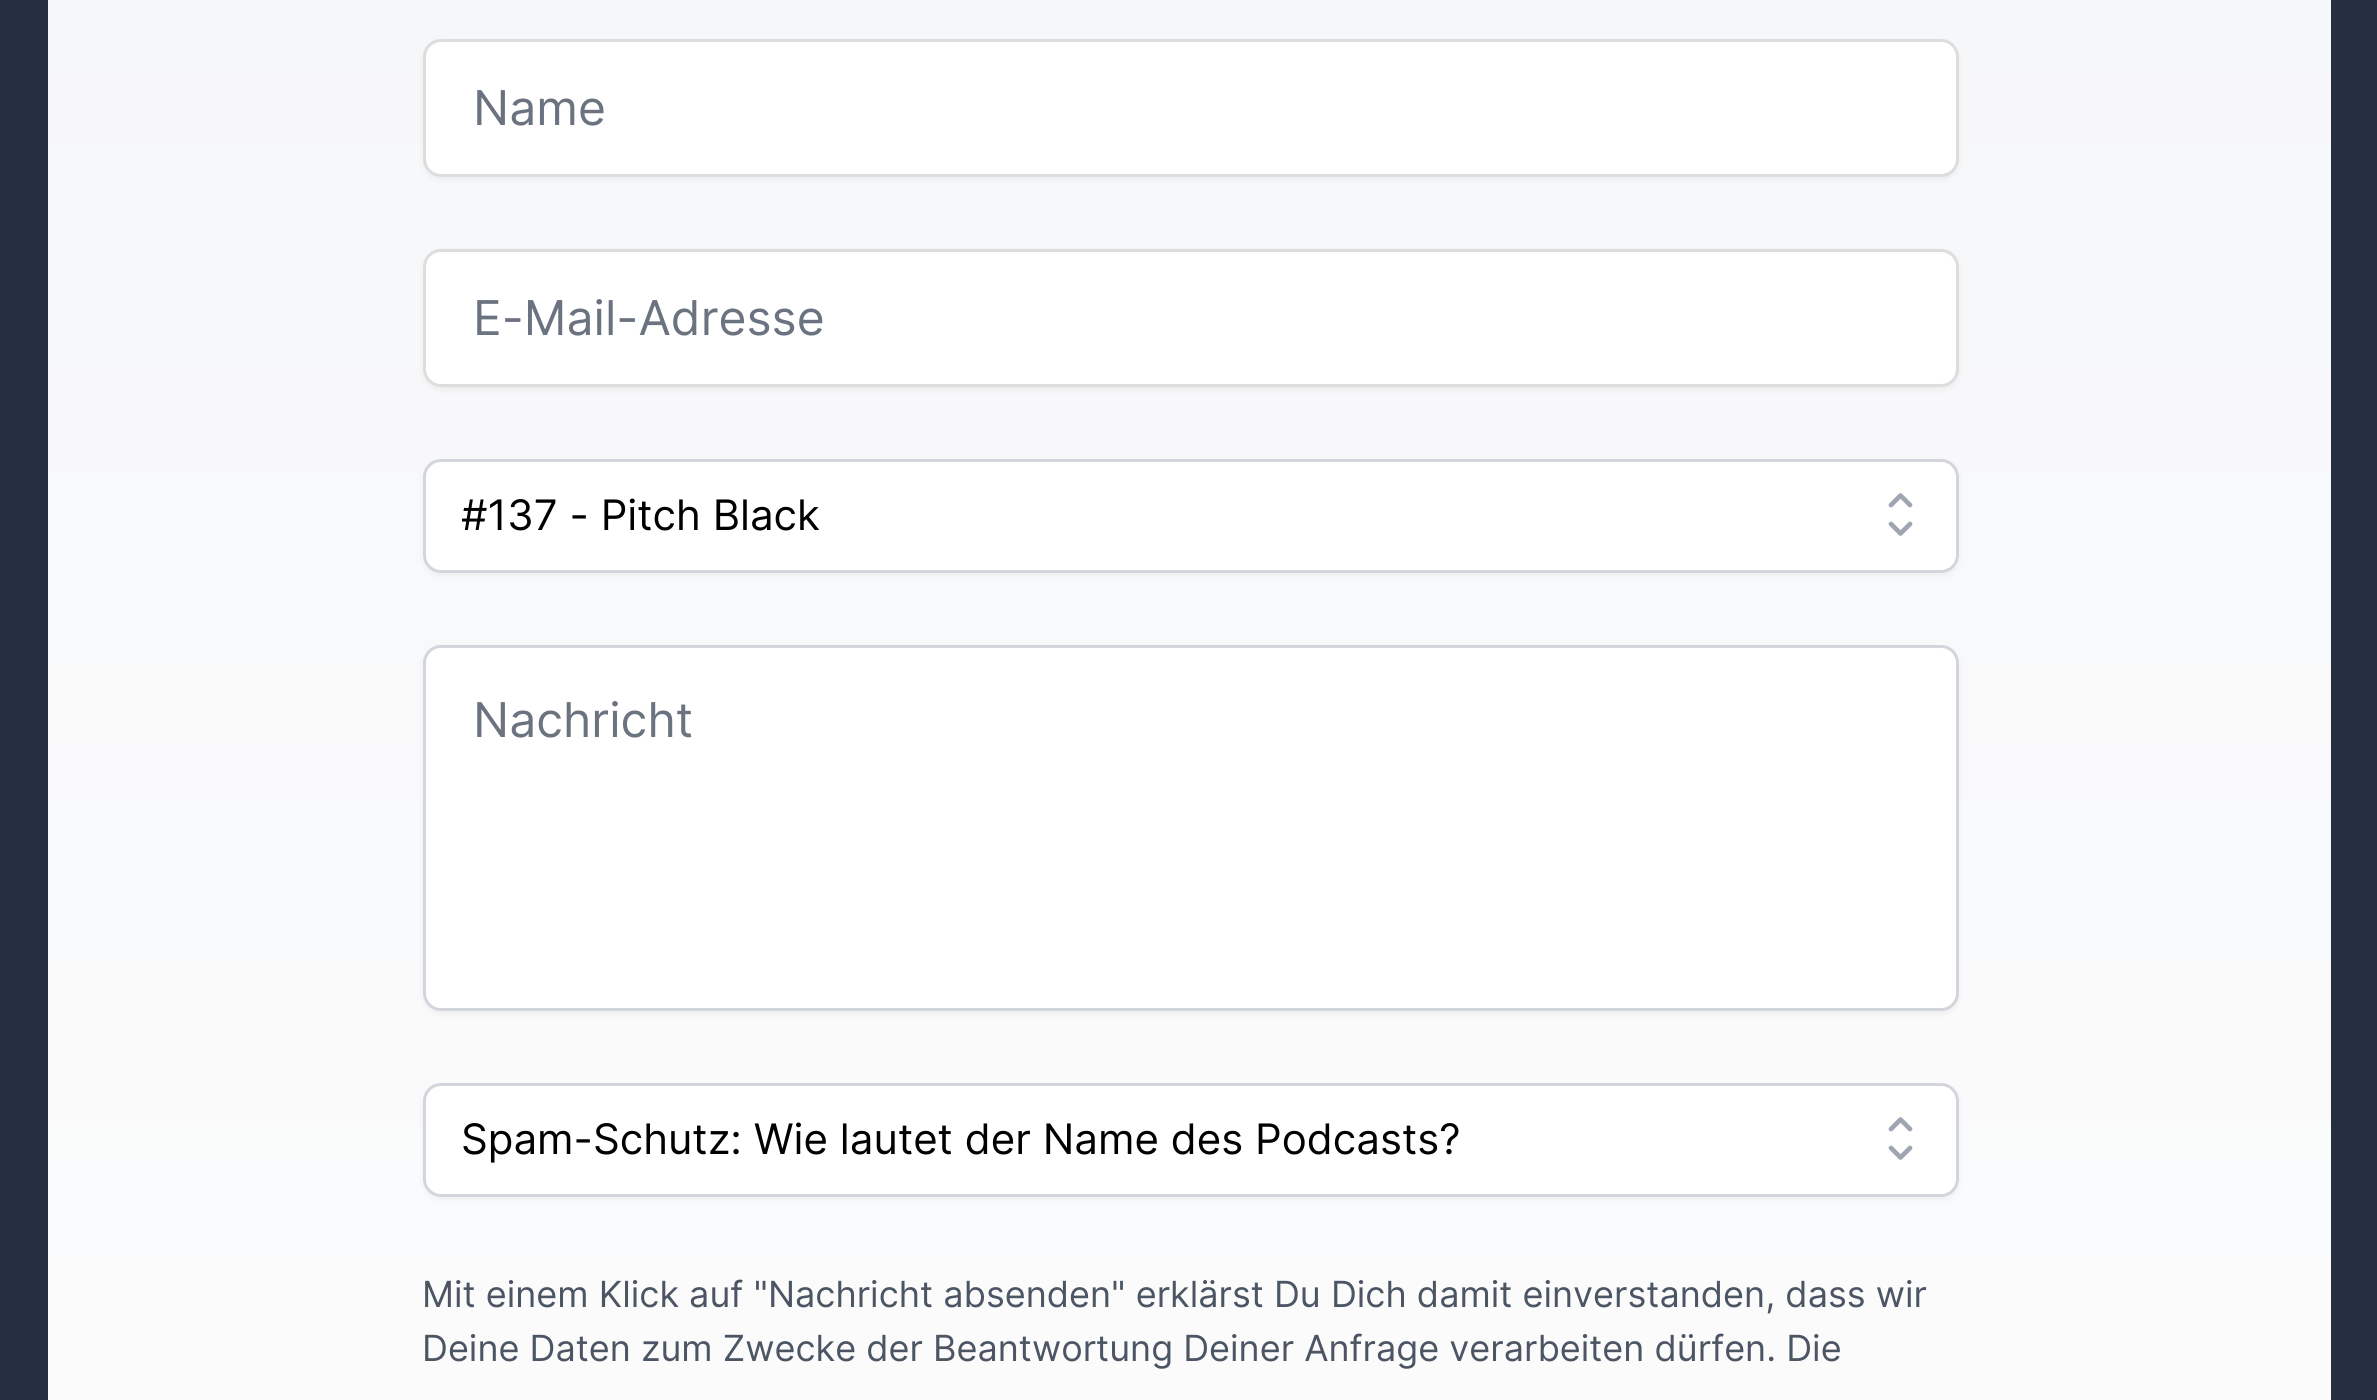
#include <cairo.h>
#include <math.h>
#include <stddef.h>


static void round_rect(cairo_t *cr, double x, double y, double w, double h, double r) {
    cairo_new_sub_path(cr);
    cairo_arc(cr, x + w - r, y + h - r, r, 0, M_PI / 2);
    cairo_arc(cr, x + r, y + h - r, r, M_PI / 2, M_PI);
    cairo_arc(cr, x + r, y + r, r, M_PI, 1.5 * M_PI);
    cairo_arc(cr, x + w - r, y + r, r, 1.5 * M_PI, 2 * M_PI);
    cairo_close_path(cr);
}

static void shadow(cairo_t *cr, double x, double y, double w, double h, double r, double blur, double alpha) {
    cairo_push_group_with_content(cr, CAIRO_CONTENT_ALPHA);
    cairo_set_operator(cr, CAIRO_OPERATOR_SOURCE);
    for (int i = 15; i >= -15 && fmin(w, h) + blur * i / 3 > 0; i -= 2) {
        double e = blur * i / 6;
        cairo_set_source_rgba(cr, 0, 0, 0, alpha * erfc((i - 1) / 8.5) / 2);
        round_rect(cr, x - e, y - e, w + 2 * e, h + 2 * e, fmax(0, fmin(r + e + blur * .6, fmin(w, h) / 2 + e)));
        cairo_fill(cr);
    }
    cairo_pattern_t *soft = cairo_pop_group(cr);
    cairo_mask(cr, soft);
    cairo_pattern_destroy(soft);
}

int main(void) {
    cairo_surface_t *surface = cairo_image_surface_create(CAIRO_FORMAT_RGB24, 2377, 1400);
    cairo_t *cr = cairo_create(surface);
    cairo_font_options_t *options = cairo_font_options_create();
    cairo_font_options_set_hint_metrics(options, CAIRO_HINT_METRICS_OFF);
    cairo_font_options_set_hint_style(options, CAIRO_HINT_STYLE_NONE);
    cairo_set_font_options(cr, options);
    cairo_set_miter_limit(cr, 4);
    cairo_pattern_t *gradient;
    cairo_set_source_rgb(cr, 0.145, 0.184, 0.247);
    cairo_paint(cr);
    gradient = cairo_pattern_create_linear(1189, -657, 1190, 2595);
    cairo_pattern_add_color_stop_rgba(gradient, 0, 0.957, 0.961, 0.969, 1);
    cairo_pattern_add_color_stop_rgba(gradient, 1, 1, 1, 1, 1);
    cairo_set_source(cr, gradient);
    cairo_pattern_destroy(gradient);
    cairo_rectangle(cr, 48, 0, 2283, 1400);
    cairo_fill(cr);
    cairo_set_source_rgb(cr, 0, 0, 0);
    shadow(cr, 423, 42, 1536, 138, 18, 3, 0.05);
    cairo_set_source_rgb(cr, 1, 1, 1);
    round_rect(cr, 424.5, 40.5, 1533, 135, 16.5);
    cairo_fill_preserve(cr);
    cairo_set_source_rgb(cr, 0.867, 0.867, 0.867);
    cairo_set_line_width(cr, 3);
    cairo_stroke(cr);
    cairo_select_font_face(cr, "Inter", CAIRO_FONT_SLANT_NORMAL, CAIRO_FONT_WEIGHT_NORMAL);
    cairo_set_font_size(cr, 48);
    cairo_set_source_rgb(cr, 0.42, 0.447, 0.502);
    cairo_move_to(cr, 473, 125);
    cairo_show_text(cr, "Name");
    cairo_set_source_rgb(cr, 0, 0, 0);
    shadow(cr, 423, 252, 1536, 138, 18, 3, 0.05);
    cairo_set_source_rgb(cr, 1, 1, 1);
    round_rect(cr, 424.5, 250.5, 1533, 135, 16.5);
    cairo_fill_preserve(cr);
    cairo_set_source_rgb(cr, 0.867, 0.867, 0.867);
    cairo_stroke(cr);
    cairo_set_source_rgb(cr, 0.42, 0.447, 0.502);
    cairo_move_to(cr, 473, 335);
    cairo_show_text(cr, "E-Mail-Adresse");
    cairo_set_source_rgb(cr, 0, 0, 0);
    shadow(cr, 423, 462, 1536, 114, 18, 3, 0.05);
    cairo_set_source_rgb(cr, 1, 1, 1);
    round_rect(cr, 423, 459, 1536, 114, 18);
    cairo_fill(cr);
    cairo_new_path(cr);
    cairo_move_to(cr, 1891, 505);
    cairo_line_to(cr, 1900.5, 495.5);
    cairo_line_to(cr, 1910, 505);
    cairo_move_to(cr, 1910, 524);
    cairo_line_to(cr, 1900.5, 533.5);
    cairo_line_to(cr, 1891, 524);
    cairo_set_source_rgb(cr, 0.624, 0.651, 0.698);
    cairo_set_line_width(cr, 4.7);
    cairo_set_line_cap(cr, CAIRO_LINE_CAP_ROUND);
    cairo_set_line_join(cr, CAIRO_LINE_JOIN_ROUND);
    cairo_stroke(cr);
    round_rect(cr, 424.5, 460.5, 1533, 111, 16.5);
    cairo_set_source_rgb(cr, 0.824, 0.839, 0.863);
    cairo_set_line_width(cr, 3);
    cairo_set_line_cap(cr, CAIRO_LINE_CAP_BUTT);
    cairo_set_line_join(cr, CAIRO_LINE_JOIN_MITER);
    cairo_stroke(cr);
    cairo_save(cr);
    cairo_rectangle(cr, 462, 486, 1374, 60);
    cairo_clip(cr);
    cairo_set_font_size(cr, 42);
    cairo_set_source_rgb(cr, 0, 0, 0);
    cairo_move_to(cr, 461, 530);
    cairo_show_text(cr, "#137 - Pitch Black");
    cairo_restore(cr);
    cairo_set_source_rgb(cr, 0, 0, 0);
    shadow(cr, 423, 648, 1536, 366, 18, 3, 0.05);
    cairo_set_source_rgb(cr, 1, 1, 1);
    round_rect(cr, 424.5, 646.5, 1533, 363, 16.5);
    cairo_fill_preserve(cr);
    cairo_set_source_rgb(cr, 0.824, 0.839, 0.863);
    cairo_stroke(cr);
    cairo_set_source_rgb(cr, 0.42, 0.447, 0.502);
    cairo_move_to(cr, 473, 737);
    cairo_show_text(cr, "Nachricht");
    cairo_set_source_rgb(cr, 0, 0, 0);
    shadow(cr, 423, 1086, 1536, 114, 18, 3, 0.05);
    cairo_set_source_rgb(cr, 1, 1, 1);
    round_rect(cr, 423, 1083, 1536, 114, 18);
    cairo_fill(cr);
    cairo_new_path(cr);
    cairo_move_to(cr, 1891, 1129);
    cairo_line_to(cr, 1900.5, 1119.5);
    cairo_line_to(cr, 1910, 1129);
    cairo_move_to(cr, 1910, 1148);
    cairo_line_to(cr, 1900.5, 1157.5);
    cairo_line_to(cr, 1891, 1148);
    cairo_set_source_rgb(cr, 0.624, 0.651, 0.698);
    cairo_set_line_width(cr, 4.7);
    cairo_set_line_cap(cr, CAIRO_LINE_CAP_ROUND);
    cairo_set_line_join(cr, CAIRO_LINE_JOIN_ROUND);
    cairo_stroke(cr);
    round_rect(cr, 424.5, 1084.5, 1533, 111, 16.5);
    cairo_set_source_rgb(cr, 0.824, 0.839, 0.863);
    cairo_set_line_width(cr, 3);
    cairo_set_line_cap(cr, CAIRO_LINE_CAP_BUTT);
    cairo_set_line_join(cr, CAIRO_LINE_JOIN_MITER);
    cairo_stroke(cr);
    cairo_set_font_size(cr, 42);
    cairo_set_source_rgb(cr, 0, 0, 0);
    cairo_move_to(cr, 461, 1154);
    cairo_show_text(cr, "Spam-Schutz: Wie lautet der Name des Podcasts?");
    cairo_set_font_size(cr, 36);
    cairo_set_source_rgb(cr, 0.294, 0.333, 0.388);
    cairo_move_to(cr, 422, 1307);
    cairo_show_text(cr, "Mit einem Klick auf \"Nachricht absenden\" erklärst Du Dich damit einverstanden, dass wir");
    cairo_move_to(cr, 422, 1361);
    cairo_show_text(cr, "Deine Daten zum Zwecke der Beantwortung Deiner Anfrage verarbeiten dürfen. Die");
    cairo_surface_write_to_png(surface, "page.png");
    cairo_font_options_destroy(options);
    cairo_destroy(cr);
    cairo_surface_destroy(surface);
    return 0;
}
